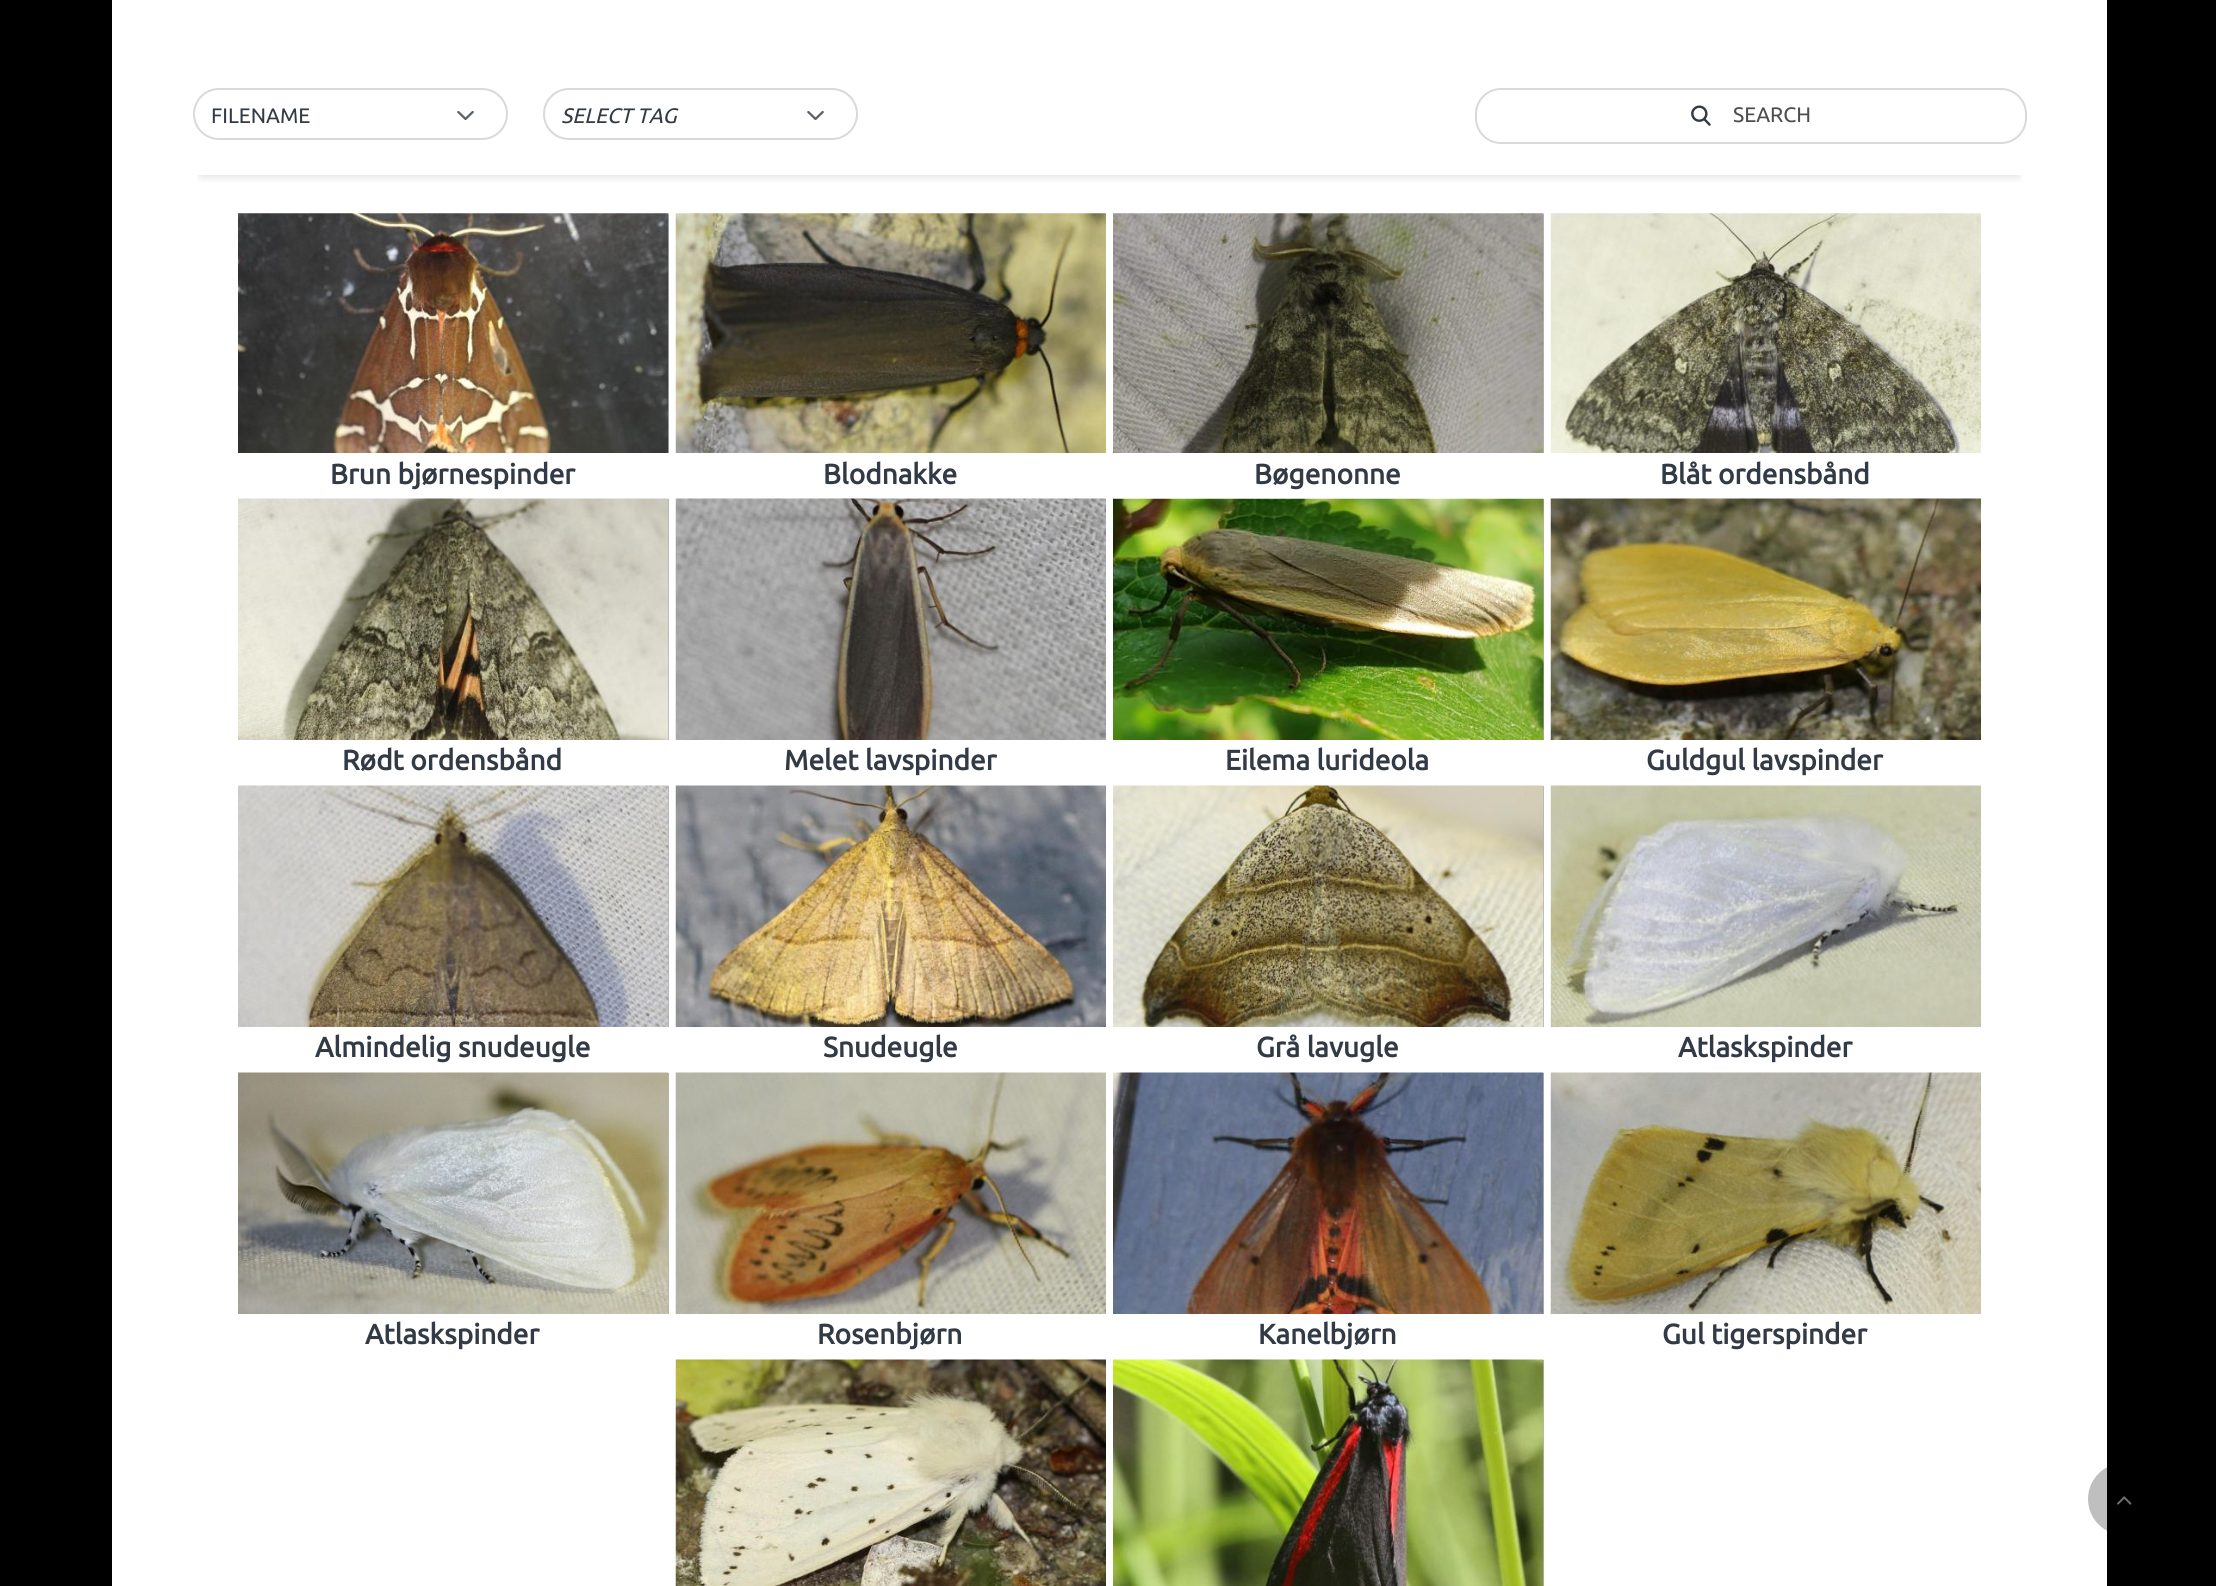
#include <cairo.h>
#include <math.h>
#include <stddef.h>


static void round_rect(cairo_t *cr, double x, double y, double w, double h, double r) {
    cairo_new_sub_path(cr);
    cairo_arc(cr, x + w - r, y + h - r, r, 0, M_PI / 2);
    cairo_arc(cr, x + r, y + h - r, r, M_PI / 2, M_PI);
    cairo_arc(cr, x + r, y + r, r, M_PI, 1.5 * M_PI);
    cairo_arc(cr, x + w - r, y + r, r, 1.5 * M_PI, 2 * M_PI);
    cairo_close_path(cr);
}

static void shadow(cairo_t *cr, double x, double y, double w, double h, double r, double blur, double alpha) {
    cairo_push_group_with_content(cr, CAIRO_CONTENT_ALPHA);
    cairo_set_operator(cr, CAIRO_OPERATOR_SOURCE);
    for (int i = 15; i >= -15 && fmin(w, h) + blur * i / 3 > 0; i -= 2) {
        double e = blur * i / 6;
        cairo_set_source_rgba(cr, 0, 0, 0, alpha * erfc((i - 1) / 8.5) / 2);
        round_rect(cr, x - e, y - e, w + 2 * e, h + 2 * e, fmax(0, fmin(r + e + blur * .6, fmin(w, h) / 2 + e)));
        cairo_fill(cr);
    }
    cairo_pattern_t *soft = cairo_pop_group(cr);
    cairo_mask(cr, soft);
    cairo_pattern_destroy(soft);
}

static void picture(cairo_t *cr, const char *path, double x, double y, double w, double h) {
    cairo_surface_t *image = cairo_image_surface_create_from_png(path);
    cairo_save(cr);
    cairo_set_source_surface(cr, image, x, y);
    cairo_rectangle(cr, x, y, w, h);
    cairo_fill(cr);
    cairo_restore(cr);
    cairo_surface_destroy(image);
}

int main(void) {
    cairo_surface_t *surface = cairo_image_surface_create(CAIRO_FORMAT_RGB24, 2216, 1586);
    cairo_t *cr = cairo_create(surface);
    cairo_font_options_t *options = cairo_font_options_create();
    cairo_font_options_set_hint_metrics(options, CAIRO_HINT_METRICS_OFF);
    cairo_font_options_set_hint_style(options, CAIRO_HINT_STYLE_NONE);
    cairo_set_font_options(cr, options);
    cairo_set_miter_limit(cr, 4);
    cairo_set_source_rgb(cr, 0, 0, 0);
    cairo_paint(cr);
    cairo_set_source_rgb(cr, 1, 1, 1);
    cairo_rectangle(cr, 112, 0, 1995, 1586);
    cairo_fill(cr);
    cairo_save(cr);
    cairo_rectangle(cr, 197, 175, 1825, 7);
    cairo_clip(cr);
    cairo_set_source_rgb(cr, 0, 0, 0);
    shadow(cr, 201, 105, 1817, 70, 0, 6, 0.16);
    cairo_restore(cr);
    round_rect(cr, 194, 89, 313, 50, 25);
    cairo_set_source_rgb(cr, 0.851, 0.851, 0.851);
    cairo_stroke(cr);
    cairo_select_font_face(cr, "Ubuntu", CAIRO_FONT_SLANT_NORMAL, CAIRO_FONT_WEIGHT_NORMAL);
    cairo_set_font_size(cr, 21);
    cairo_set_source_rgb(cr, 0.196, 0.227, 0.271);
    cairo_move_to(cr, 211, 123);
    cairo_show_text(cr, "FILENAME");
    picture(cr, "img1.png", 457, 110, 17, 11);
    round_rect(cr, 544, 89, 313, 50, 25);
    cairo_set_source_rgb(cr, 0.851, 0.851, 0.851);
    cairo_stroke(cr);
    cairo_select_font_face(cr, "Ubuntu", CAIRO_FONT_SLANT_ITALIC, CAIRO_FONT_WEIGHT_NORMAL);
    cairo_set_source_rgb(cr, 0.196, 0.227, 0.271);
    cairo_move_to(cr, 561, 123);
    cairo_show_text(cr, "SELECT TAG");
    picture(cr, "img1.png", 807, 110, 17, 11);
    round_rect(cr, 1476, 89, 550, 54, 25);
    cairo_set_source_rgb(cr, 0.851, 0.851, 0.851);
    cairo_stroke(cr);
    picture(cr, "img2.png", 1691, 105, 20, 21);
    cairo_select_font_face(cr, "Ubuntu", CAIRO_FONT_SLANT_NORMAL, CAIRO_FONT_WEIGHT_NORMAL);
    cairo_set_source_rgb(cr, 0.306, 0.306, 0.306);
    cairo_move_to(cr, 1733, 122);
    cairo_show_text(cr, "SEARCH");
    cairo_set_source_rgb(cr, 0.702, 0.702, 0.702);
    cairo_rectangle(cr, 668, 214, 1, 239);
    cairo_fill(cr);
    picture(cr, "img3.png", 238, 213, 431, 240);
    cairo_select_font_face(cr, "Ubuntu", CAIRO_FONT_SLANT_NORMAL, CAIRO_FONT_WEIGHT_BOLD);
    cairo_set_font_size(cr, 28);
    cairo_set_source_rgb(cr, 0.196, 0.227, 0.271);
    cairo_move_to(cr, 330, 484);
    cairo_show_text(cr, "Brun bjørnespinder");
    picture(cr, "img4.png", 675, 213, 431, 240);
    cairo_move_to(cr, 823, 484);
    cairo_show_text(cr, "Blodnakke");
    cairo_set_source_rgb(cr, 0.702, 0.702, 0.702);
    cairo_rectangle(cr, 1543, 214, 1, 239);
    cairo_fill(cr);
    picture(cr, "img5.png", 1113, 213, 431, 240);
    cairo_set_source_rgb(cr, 0.196, 0.227, 0.271);
    cairo_move_to(cr, 1254, 484);
    cairo_show_text(cr, "Bøgenonne");
    picture(cr, "img6.png", 1550, 213, 431, 240);
    cairo_move_to(cr, 1660, 484);
    cairo_show_text(cr, "Blåt ordensbånd");
    cairo_set_source_rgb(cr, 0.702, 0.702, 0.702);
    cairo_rectangle(cr, 668, 499, 1, 241);
    cairo_fill(cr);
    picture(cr, "img7.png", 238, 498, 431, 242);
    cairo_set_source_rgb(cr, 0.196, 0.227, 0.271);
    cairo_move_to(cr, 342, 770);
    cairo_show_text(cr, "Rødt ordensbånd");
    picture(cr, "img8.png", 675, 498, 431, 242);
    cairo_move_to(cr, 784, 770);
    cairo_show_text(cr, "Melet lavspinder");
    cairo_set_source_rgb(cr, 0.702, 0.702, 0.702);
    cairo_rectangle(cr, 1543, 499, 1, 241);
    cairo_fill(cr);
    picture(cr, "img9.png", 1113, 498, 431, 242);
    cairo_set_source_rgb(cr, 0.196, 0.227, 0.271);
    cairo_move_to(cr, 1225, 770);
    cairo_show_text(cr, "Eilema lurideola");
    picture(cr, "img10.png", 1550, 498, 431, 242);
    cairo_move_to(cr, 1646, 770);
    cairo_show_text(cr, "Guldgul lavspinder");
    cairo_set_source_rgb(cr, 0.702, 0.702, 0.702);
    cairo_rectangle(cr, 668, 786, 1, 241);
    cairo_fill(cr);
    picture(cr, "img11.png", 238, 785, 431, 242);
    cairo_set_source_rgb(cr, 0.196, 0.227, 0.271);
    cairo_move_to(cr, 315, 1057);
    cairo_show_text(cr, "Almindelig snudeugle");
    picture(cr, "img12.png", 675, 785, 431, 242);
    cairo_move_to(cr, 823, 1057);
    cairo_show_text(cr, "Snudeugle");
    cairo_set_source_rgb(cr, 0.702, 0.702, 0.702);
    cairo_rectangle(cr, 1543, 786, 1, 241);
    cairo_fill(cr);
    picture(cr, "img13.png", 1113, 785, 431, 242);
    cairo_set_source_rgb(cr, 0.196, 0.227, 0.271);
    cairo_move_to(cr, 1256, 1057);
    cairo_show_text(cr, "Grå lavugle");
    picture(cr, "img14.png", 1550, 785, 431, 242);
    cairo_move_to(cr, 1678, 1057);
    cairo_show_text(cr, "Atlaskspinder");
    cairo_set_source_rgb(cr, 0.702, 0.702, 0.702);
    cairo_rectangle(cr, 668, 1073, 1, 241);
    cairo_fill(cr);
    picture(cr, "img15.png", 238, 1072, 431, 242);
    cairo_set_source_rgb(cr, 0.196, 0.227, 0.271);
    cairo_move_to(cr, 365, 1344);
    cairo_show_text(cr, "Atlaskspinder");
    picture(cr, "img16.png", 675, 1072, 431, 242);
    cairo_move_to(cr, 817, 1344);
    cairo_show_text(cr, "Rosenbjørn");
    cairo_set_source_rgb(cr, 0.702, 0.702, 0.702);
    cairo_rectangle(cr, 1543, 1073, 1, 241);
    cairo_fill(cr);
    picture(cr, "img17.png", 1113, 1072, 431, 242);
    cairo_set_source_rgb(cr, 0.196, 0.227, 0.271);
    cairo_move_to(cr, 1258, 1344);
    cairo_show_text(cr, "Kanelbjørn");
    picture(cr, "img18.png", 1550, 1072, 431, 242);
    cairo_move_to(cr, 1662, 1344);
    cairo_show_text(cr, "Gul tigerspinder");
    picture(cr, "img19.png", 675, 1359, 431, 227);
    cairo_set_source_rgb(cr, 0.702, 0.702, 0.702);
    cairo_rectangle(cr, 1543, 1360, 1, 226);
    cairo_fill(cr);
    picture(cr, "img20.png", 1113, 1359, 431, 227);
    cairo_set_source_rgba(cr, 0, 0, 0, 0.25);
    cairo_arc(cr, 2124, 1499, 36, 0, 2 * M_PI);
    cairo_fill(cr);
    picture(cr, "img21.png", 2117, 1496, 15, 9);
    cairo_surface_write_to_png(surface, "page.png");
    cairo_font_options_destroy(options);
    cairo_destroy(cr);
    cairo_surface_destroy(surface);
    return 0;
}
